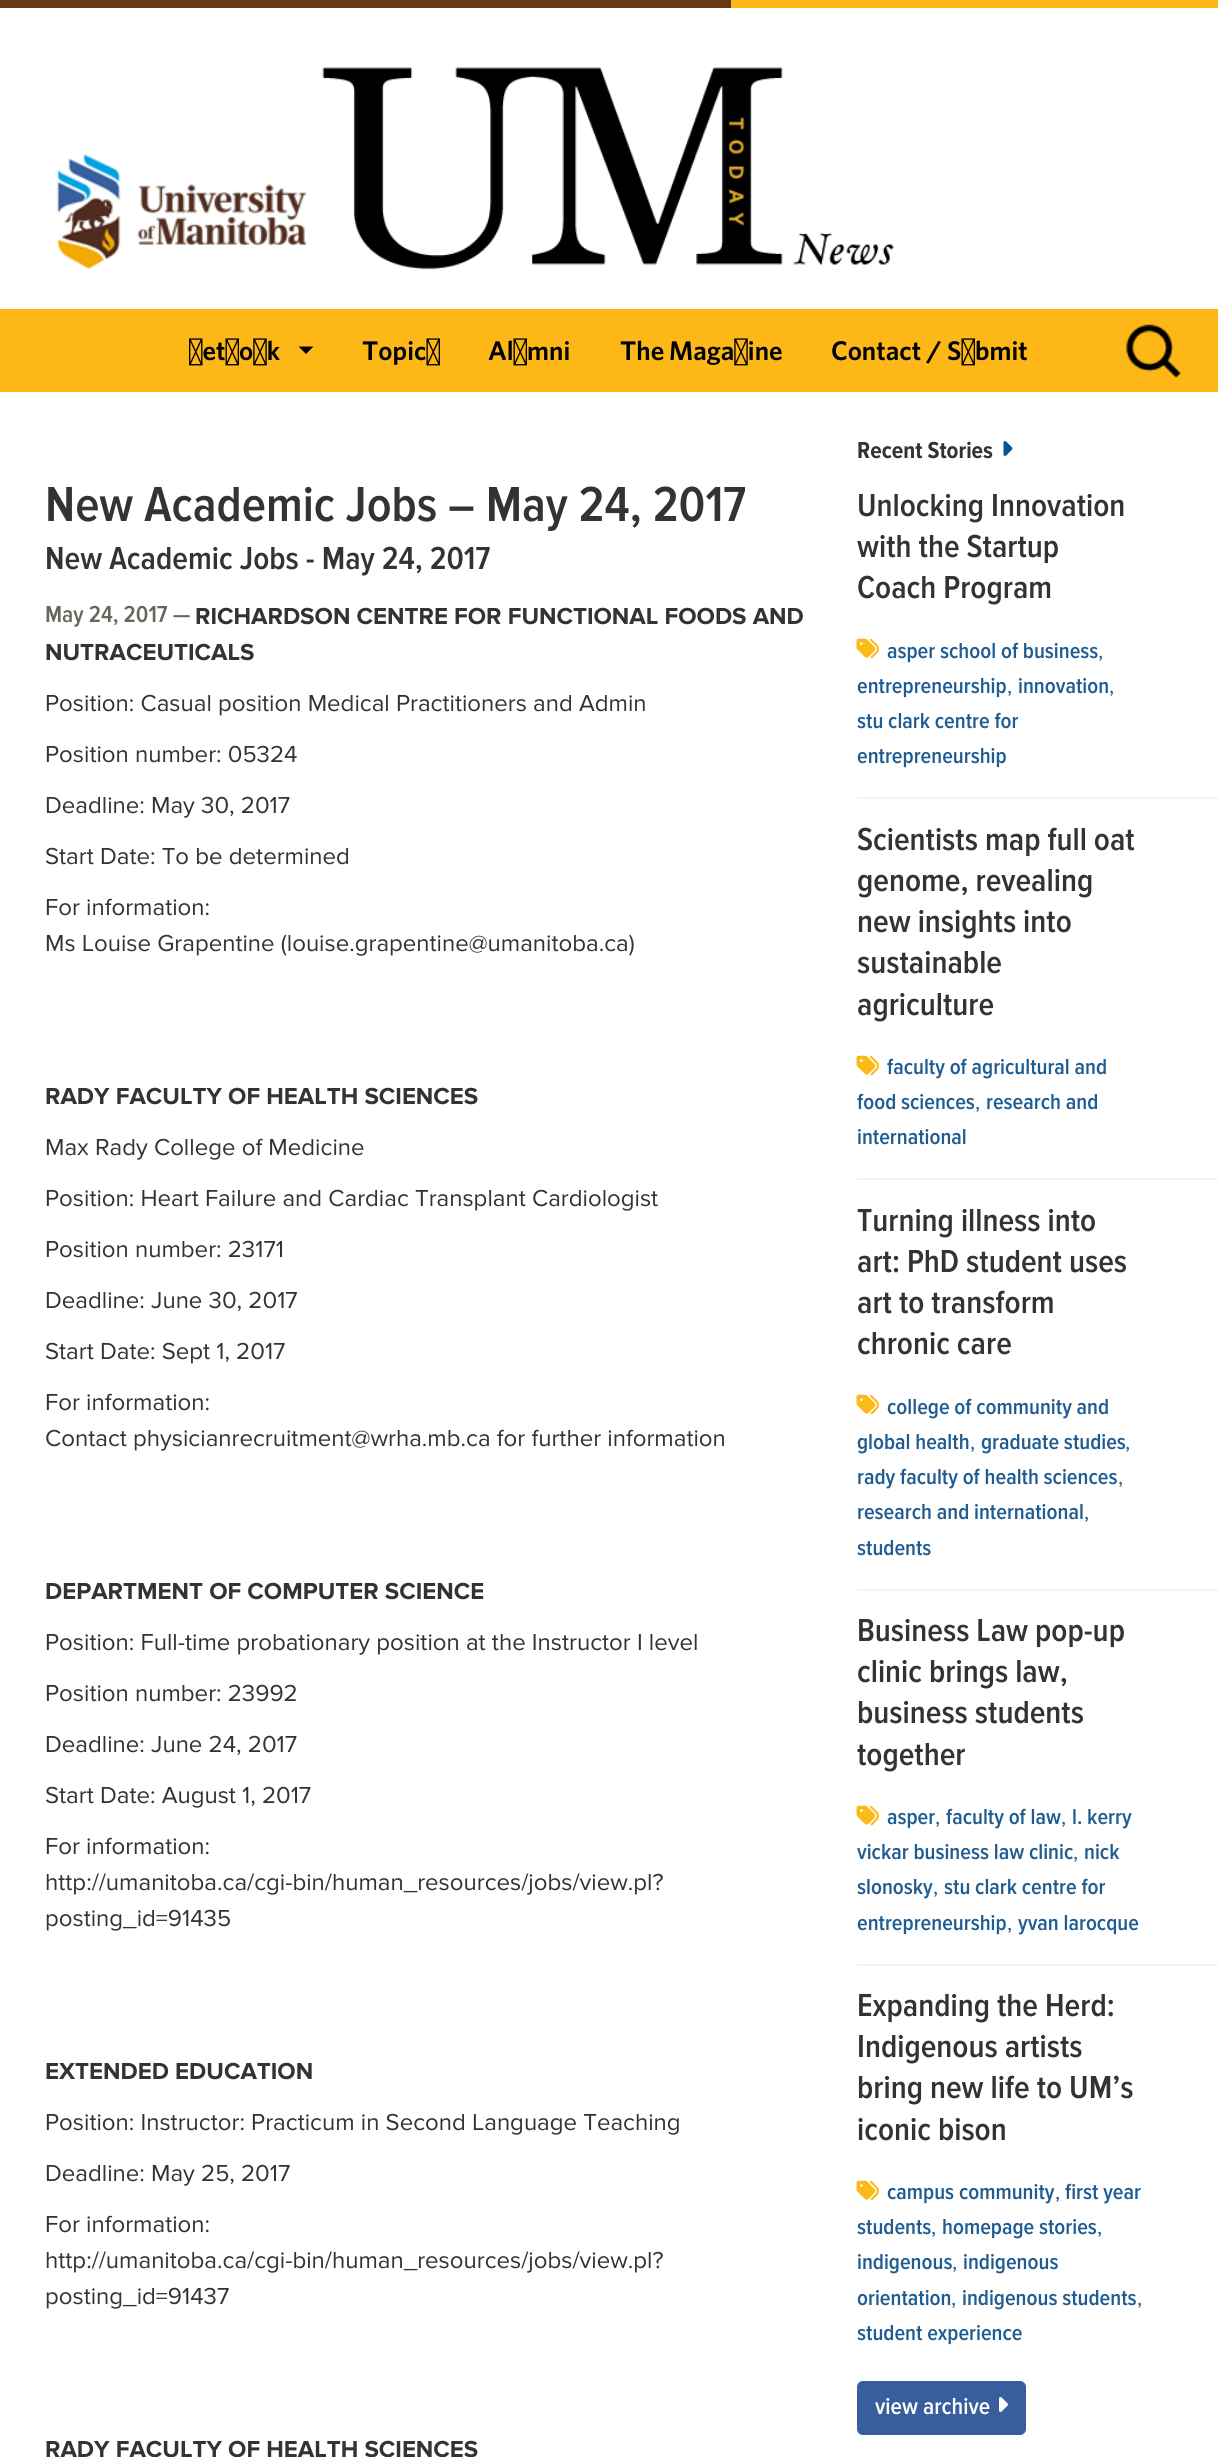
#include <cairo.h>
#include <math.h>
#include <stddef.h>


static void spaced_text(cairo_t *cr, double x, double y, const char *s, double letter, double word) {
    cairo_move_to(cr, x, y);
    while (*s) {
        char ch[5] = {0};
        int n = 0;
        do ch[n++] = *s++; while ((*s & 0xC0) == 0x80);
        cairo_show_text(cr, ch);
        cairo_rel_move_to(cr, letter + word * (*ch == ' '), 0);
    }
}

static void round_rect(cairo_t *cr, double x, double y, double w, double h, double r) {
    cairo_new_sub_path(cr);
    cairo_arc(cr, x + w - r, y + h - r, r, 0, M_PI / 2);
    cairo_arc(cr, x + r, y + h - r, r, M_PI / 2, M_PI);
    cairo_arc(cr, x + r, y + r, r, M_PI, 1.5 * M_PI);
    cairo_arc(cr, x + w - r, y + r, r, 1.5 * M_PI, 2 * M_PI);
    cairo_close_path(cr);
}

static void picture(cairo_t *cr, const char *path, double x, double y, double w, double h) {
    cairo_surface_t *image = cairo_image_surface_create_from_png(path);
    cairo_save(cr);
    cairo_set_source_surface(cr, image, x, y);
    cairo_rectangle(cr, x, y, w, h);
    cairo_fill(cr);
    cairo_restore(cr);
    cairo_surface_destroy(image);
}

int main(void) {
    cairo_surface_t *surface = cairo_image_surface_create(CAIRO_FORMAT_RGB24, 1218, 2457);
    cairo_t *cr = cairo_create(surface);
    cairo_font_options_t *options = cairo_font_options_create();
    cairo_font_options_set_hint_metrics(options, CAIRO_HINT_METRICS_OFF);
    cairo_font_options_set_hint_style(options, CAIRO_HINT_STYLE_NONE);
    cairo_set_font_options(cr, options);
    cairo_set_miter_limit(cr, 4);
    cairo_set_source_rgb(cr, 1, 1, 1);
    cairo_paint(cr);
    cairo_set_source_rgb(cr, 0.396, 0.227, 0.082);
    cairo_rectangle(cr, 0, 0, 731, 8);
    cairo_fill(cr);
    cairo_set_source_rgb(cr, 0.992, 0.722, 0.09);
    cairo_rectangle(cr, 731, 0, 487, 8);
    cairo_fill(cr);
    picture(cr, "img1.png", 56, 154, 250, 115);
    picture(cr, "img2.png", 322, 67, 572, 203);
    cairo_rectangle(cr, 0, 309, 1218, 83);
    cairo_fill(cr);
    cairo_select_font_face(cr, "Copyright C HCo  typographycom", CAIRO_FONT_SLANT_NORMAL, CAIRO_FONT_WEIGHT_NORMAL);
    cairo_set_font_size(cr, 27);
    cairo_set_source_rgb(cr, 0, 0, 0);
    cairo_move_to(cr, 189, 360);
    cairo_show_text(cr, "Network");
    cairo_new_path(cr);
    cairo_move_to(cr, 298.5, 346.5);
    cairo_line_to(cr, 313.5, 346.5);
    cairo_line_to(cr, 306, 354);
    cairo_close_path(cr);
    cairo_fill(cr);
    cairo_move_to(cr, 362, 360);
    cairo_show_text(cr, "Topics");
    cairo_move_to(cr, 488, 360);
    cairo_show_text(cr, "Alumni");
    spaced_text(cr, 620, 360, "The Magazine", 0, -1);
    cairo_move_to(cr, 831, 360);
    cairo_show_text(cr, "Contact / Submit");
    picture(cr, "img3.png", 1126, 324, 55, 54);
    cairo_select_font_face(cr, "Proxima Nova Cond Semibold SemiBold", CAIRO_FONT_SLANT_NORMAL, CAIRO_FONT_WEIGHT_NORMAL);
    cairo_set_font_size(cr, 51);
    cairo_set_source_rgb(cr, 0.2, 0.2, 0.2);
    cairo_move_to(cr, 45, 521);
    cairo_show_text(cr, "New Academic Jobs – May 24, 2017");
    cairo_set_font_size(cr, 33);
    cairo_move_to(cr, 45, 569);
    cairo_show_text(cr, "New Academic Jobs - May 24, 2017");
    cairo_set_font_size(cr, 24);
    cairo_set_source_rgb(cr, 0.412, 0.404, 0.357);
    cairo_move_to(cr, 45, 622);
    cairo_show_text(cr, "May 24, 2017 —");
    cairo_select_font_face(cr, "Proxima Nova", CAIRO_FONT_SLANT_NORMAL, CAIRO_FONT_WEIGHT_BOLD);
    cairo_set_source_rgb(cr, 0.2, 0.2, 0.2);
    cairo_move_to(cr, 195, 624);
    cairo_show_text(cr, "RICHARDSON CENTRE FOR FUNCTIONAL FOODS AND");
    cairo_move_to(cr, 45, 660);
    cairo_show_text(cr, "NUTRACEUTICALS");
    cairo_select_font_face(cr, "Proxima Nova", CAIRO_FONT_SLANT_NORMAL, CAIRO_FONT_WEIGHT_NORMAL);
    cairo_move_to(cr, 45, 711);
    cairo_show_text(cr, "Position: Casual position Medical Practitioners and Admin");
    cairo_move_to(cr, 45, 762);
    cairo_show_text(cr, "Position number: 05324");
    cairo_move_to(cr, 45, 813);
    cairo_show_text(cr, "Deadline: May 30, 2017");
    cairo_move_to(cr, 45, 864);
    cairo_show_text(cr, "Start Date: To be determined");
    cairo_move_to(cr, 45, 915);
    cairo_show_text(cr, "For information:");
    cairo_move_to(cr, 45, 951);
    cairo_show_text(cr, "Ms Louise Grapentine (louise.grapentine@umanitoba.ca)");
    cairo_select_font_face(cr, "Proxima Nova", CAIRO_FONT_SLANT_NORMAL, CAIRO_FONT_WEIGHT_BOLD);
    cairo_move_to(cr, 45, 1104);
    cairo_show_text(cr, "RADY FACULTY OF HEALTH SCIENCES");
    cairo_select_font_face(cr, "Proxima Nova", CAIRO_FONT_SLANT_NORMAL, CAIRO_FONT_WEIGHT_NORMAL);
    cairo_move_to(cr, 45, 1155);
    cairo_show_text(cr, "Max Rady College of Medicine");
    cairo_move_to(cr, 45, 1206);
    cairo_show_text(cr, "Position: Heart Failure and Cardiac Transplant Cardiologist");
    cairo_move_to(cr, 45, 1257);
    cairo_show_text(cr, "Position number: 23171");
    cairo_move_to(cr, 45, 1308);
    cairo_show_text(cr, "Deadline: June 30, 2017");
    cairo_move_to(cr, 45, 1359);
    cairo_show_text(cr, "Start Date: Sept 1, 2017");
    cairo_move_to(cr, 45, 1410);
    cairo_show_text(cr, "For information:");
    cairo_move_to(cr, 45, 1446);
    cairo_show_text(cr, "Contact physicianrecruitment@wrha.mb.ca for further information");
    cairo_select_font_face(cr, "Proxima Nova", CAIRO_FONT_SLANT_NORMAL, CAIRO_FONT_WEIGHT_BOLD);
    cairo_move_to(cr, 45, 1599);
    cairo_show_text(cr, "DEPARTMENT OF COMPUTER SCIENCE");
    cairo_select_font_face(cr, "Proxima Nova", CAIRO_FONT_SLANT_NORMAL, CAIRO_FONT_WEIGHT_NORMAL);
    cairo_move_to(cr, 45, 1650);
    cairo_show_text(cr, "Position: Full-time probationary position at the Instructor I level");
    cairo_move_to(cr, 45, 1701);
    cairo_show_text(cr, "Position number: 23992");
    cairo_move_to(cr, 45, 1752);
    cairo_show_text(cr, "Deadline: June 24, 2017");
    cairo_move_to(cr, 45, 1803);
    cairo_show_text(cr, "Start Date: August 1, 2017");
    cairo_move_to(cr, 45, 1854);
    cairo_show_text(cr, "For information:");
    cairo_move_to(cr, 45, 1890);
    cairo_show_text(cr, "http://umanitoba.ca/cgi-bin/human_resources/jobs/view.pl?");
    cairo_move_to(cr, 45, 1926);
    cairo_show_text(cr, "posting_id=91435");
    cairo_select_font_face(cr, "Proxima Nova", CAIRO_FONT_SLANT_NORMAL, CAIRO_FONT_WEIGHT_BOLD);
    cairo_move_to(cr, 45, 2079);
    cairo_show_text(cr, "EXTENDED EDUCATION");
    cairo_select_font_face(cr, "Proxima Nova", CAIRO_FONT_SLANT_NORMAL, CAIRO_FONT_WEIGHT_NORMAL);
    cairo_move_to(cr, 45, 2130);
    cairo_show_text(cr, "Position: Instructor: Practicum in Second Language Teaching");
    cairo_move_to(cr, 45, 2181);
    cairo_show_text(cr, "Deadline: May 25, 2017");
    cairo_move_to(cr, 45, 2232);
    cairo_show_text(cr, "For information:");
    cairo_move_to(cr, 45, 2268);
    cairo_show_text(cr, "http://umanitoba.ca/cgi-bin/human_resources/jobs/view.pl?");
    cairo_move_to(cr, 45, 2304);
    cairo_show_text(cr, "posting_id=91437");
    cairo_select_font_face(cr, "Proxima Nova", CAIRO_FONT_SLANT_NORMAL, CAIRO_FONT_WEIGHT_BOLD);
    cairo_move_to(cr, 45, 2457);
    cairo_show_text(cr, "RADY FACULTY OF HEALTH SCIENCES");
    cairo_select_font_face(cr, "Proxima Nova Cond", CAIRO_FONT_SLANT_NORMAL, CAIRO_FONT_WEIGHT_BOLD);
    cairo_move_to(cr, 857, 458);
    cairo_show_text(cr, "Recent Stories");
    picture(cr, "img4.png", 1003, 441, 10, 15);
    cairo_select_font_face(cr, "Proxima Nova Cond Semibold SemiBold", CAIRO_FONT_SLANT_NORMAL, CAIRO_FONT_WEIGHT_NORMAL);
    cairo_set_font_size(cr, 33);
    cairo_move_to(cr, 857, 516);
    cairo_show_text(cr, "Unlocking Innovation");
    cairo_move_to(cr, 857, 557);
    cairo_show_text(cr, "with the Startup");
    cairo_move_to(cr, 857, 598);
    cairo_show_text(cr, "Coach Program");
    picture(cr, "img5.png", 856, 638, 23, 21);
    cairo_set_font_size(cr, 22.5);
    cairo_set_source_rgb(cr, 0.118, 0.361, 0.569);
    cairo_move_to(cr, 887, 658);
    cairo_show_text(cr, "asper school of business");
    cairo_select_font_face(cr, "Proxima Nova", CAIRO_FONT_SLANT_NORMAL, CAIRO_FONT_WEIGHT_NORMAL);
    cairo_move_to(cr, 1098, 658);
    cairo_show_text(cr, ",");
    cairo_select_font_face(cr, "Proxima Nova Cond Semibold SemiBold", CAIRO_FONT_SLANT_NORMAL, CAIRO_FONT_WEIGHT_NORMAL);
    cairo_move_to(cr, 857, 693);
    cairo_show_text(cr, "entrepreneurship");
    cairo_select_font_face(cr, "Proxima Nova", CAIRO_FONT_SLANT_NORMAL, CAIRO_FONT_WEIGHT_NORMAL);
    cairo_move_to(cr, 1007, 693);
    cairo_show_text(cr, ",");
    cairo_select_font_face(cr, "Proxima Nova Cond Semibold SemiBold", CAIRO_FONT_SLANT_NORMAL, CAIRO_FONT_WEIGHT_NORMAL);
    cairo_move_to(cr, 1018, 693);
    cairo_show_text(cr, "innovation");
    cairo_select_font_face(cr, "Proxima Nova", CAIRO_FONT_SLANT_NORMAL, CAIRO_FONT_WEIGHT_NORMAL);
    cairo_move_to(cr, 1109, 693);
    cairo_show_text(cr, ",");
    cairo_select_font_face(cr, "Proxima Nova Cond Semibold SemiBold", CAIRO_FONT_SLANT_NORMAL, CAIRO_FONT_WEIGHT_NORMAL);
    cairo_move_to(cr, 857, 728);
    cairo_show_text(cr, "stu clark centre for");
    cairo_move_to(cr, 857, 763);
    cairo_show_text(cr, "entrepreneurship");
    cairo_set_source_rgb(cr, 0.961, 0.945, 0.929);
    cairo_rectangle(cr, 857, 797, 361, 2);
    cairo_fill(cr);
    cairo_set_font_size(cr, 33);
    cairo_set_source_rgb(cr, 0.2, 0.2, 0.2);
    cairo_move_to(cr, 857, 850);
    cairo_show_text(cr, "Scientists map full oat");
    cairo_move_to(cr, 857, 891);
    cairo_show_text(cr, "genome, revealing");
    cairo_move_to(cr, 857, 932);
    cairo_show_text(cr, "new insights into");
    cairo_move_to(cr, 857, 973);
    cairo_show_text(cr, "sustainable");
    cairo_move_to(cr, 857, 1015);
    cairo_show_text(cr, "agriculture");
    picture(cr, "img5.png", 856, 1055, 23, 21);
    cairo_set_font_size(cr, 22.5);
    cairo_set_source_rgb(cr, 0.118, 0.361, 0.569);
    cairo_move_to(cr, 887, 1074);
    cairo_show_text(cr, "faculty of agricultural and");
    cairo_move_to(cr, 857, 1109);
    cairo_show_text(cr, "food sciences");
    cairo_select_font_face(cr, "Proxima Nova", CAIRO_FONT_SLANT_NORMAL, CAIRO_FONT_WEIGHT_NORMAL);
    cairo_move_to(cr, 975, 1109);
    cairo_show_text(cr, ",");
    cairo_select_font_face(cr, "Proxima Nova Cond Semibold SemiBold", CAIRO_FONT_SLANT_NORMAL, CAIRO_FONT_WEIGHT_NORMAL);
    cairo_move_to(cr, 986, 1109);
    cairo_show_text(cr, "research and");
    cairo_move_to(cr, 857, 1144);
    cairo_show_text(cr, "international");
    cairo_set_source_rgb(cr, 0.961, 0.945, 0.929);
    cairo_rectangle(cr, 857, 1178, 361, 2);
    cairo_fill(cr);
    cairo_set_font_size(cr, 33);
    cairo_set_source_rgb(cr, 0.2, 0.2, 0.2);
    cairo_move_to(cr, 857, 1231);
    cairo_show_text(cr, "Turning illness into");
    cairo_move_to(cr, 857, 1272);
    cairo_show_text(cr, "art: PhD student uses");
    cairo_move_to(cr, 857, 1313);
    cairo_show_text(cr, "art to transform");
    cairo_move_to(cr, 857, 1354);
    cairo_show_text(cr, "chronic care");
    picture(cr, "img5.png", 856, 1394, 23, 21);
    cairo_set_font_size(cr, 22.5);
    cairo_set_source_rgb(cr, 0.118, 0.361, 0.569);
    cairo_move_to(cr, 887, 1414);
    cairo_show_text(cr, "college of community and");
    cairo_move_to(cr, 857, 1449);
    cairo_show_text(cr, "global health");
    cairo_select_font_face(cr, "Proxima Nova", CAIRO_FONT_SLANT_NORMAL, CAIRO_FONT_WEIGHT_NORMAL);
    cairo_move_to(cr, 970, 1449);
    cairo_show_text(cr, ",");
    cairo_select_font_face(cr, "Proxima Nova Cond Semibold SemiBold", CAIRO_FONT_SLANT_NORMAL, CAIRO_FONT_WEIGHT_NORMAL);
    cairo_move_to(cr, 981, 1449);
    cairo_show_text(cr, "graduate studies");
    cairo_select_font_face(cr, "Proxima Nova", CAIRO_FONT_SLANT_NORMAL, CAIRO_FONT_WEIGHT_NORMAL);
    cairo_move_to(cr, 1125, 1449);
    cairo_show_text(cr, ",");
    cairo_select_font_face(cr, "Proxima Nova Cond Semibold SemiBold", CAIRO_FONT_SLANT_NORMAL, CAIRO_FONT_WEIGHT_NORMAL);
    cairo_move_to(cr, 857, 1484);
    cairo_show_text(cr, "rady faculty of health sciences");
    cairo_select_font_face(cr, "Proxima Nova", CAIRO_FONT_SLANT_NORMAL, CAIRO_FONT_WEIGHT_NORMAL);
    cairo_move_to(cr, 1118, 1484);
    cairo_show_text(cr, ",");
    cairo_select_font_face(cr, "Proxima Nova Cond Semibold SemiBold", CAIRO_FONT_SLANT_NORMAL, CAIRO_FONT_WEIGHT_NORMAL);
    cairo_move_to(cr, 857, 1519);
    cairo_show_text(cr, "research and international");
    cairo_select_font_face(cr, "Proxima Nova", CAIRO_FONT_SLANT_NORMAL, CAIRO_FONT_WEIGHT_NORMAL);
    cairo_move_to(cr, 1084, 1519);
    cairo_show_text(cr, ",");
    cairo_select_font_face(cr, "Proxima Nova Cond Semibold SemiBold", CAIRO_FONT_SLANT_NORMAL, CAIRO_FONT_WEIGHT_NORMAL);
    cairo_move_to(cr, 857, 1555);
    cairo_show_text(cr, "students");
    cairo_set_source_rgb(cr, 0.961, 0.945, 0.929);
    cairo_rectangle(cr, 857, 1589, 361, 2);
    cairo_fill(cr);
    cairo_set_font_size(cr, 33);
    cairo_set_source_rgb(cr, 0.2, 0.2, 0.2);
    cairo_move_to(cr, 857, 1641);
    cairo_show_text(cr, "Business Law pop-up");
    cairo_move_to(cr, 857, 1682);
    cairo_show_text(cr, "clinic brings law,");
    cairo_move_to(cr, 857, 1723);
    cairo_show_text(cr, "business students");
    cairo_move_to(cr, 857, 1765);
    cairo_show_text(cr, "together");
    picture(cr, "img5.png", 856, 1805, 23, 21);
    cairo_set_font_size(cr, 22.5);
    cairo_set_source_rgb(cr, 0.118, 0.361, 0.569);
    cairo_move_to(cr, 887, 1824);
    cairo_show_text(cr, "asper");
    cairo_select_font_face(cr, "Proxima Nova", CAIRO_FONT_SLANT_NORMAL, CAIRO_FONT_WEIGHT_NORMAL);
    cairo_move_to(cr, 935, 1824);
    cairo_show_text(cr, ",");
    cairo_select_font_face(cr, "Proxima Nova Cond Semibold SemiBold", CAIRO_FONT_SLANT_NORMAL, CAIRO_FONT_WEIGHT_NORMAL);
    cairo_move_to(cr, 946, 1824);
    cairo_show_text(cr, "faculty of law");
    cairo_select_font_face(cr, "Proxima Nova", CAIRO_FONT_SLANT_NORMAL, CAIRO_FONT_WEIGHT_NORMAL);
    cairo_move_to(cr, 1061, 1824);
    cairo_show_text(cr, ",");
    cairo_select_font_face(cr, "Proxima Nova Cond Semibold SemiBold", CAIRO_FONT_SLANT_NORMAL, CAIRO_FONT_WEIGHT_NORMAL);
    cairo_move_to(cr, 1072, 1824);
    cairo_show_text(cr, "l. kerry");
    cairo_move_to(cr, 857, 1859);
    cairo_show_text(cr, "vickar business law clinic");
    cairo_select_font_face(cr, "Proxima Nova", CAIRO_FONT_SLANT_NORMAL, CAIRO_FONT_WEIGHT_NORMAL);
    cairo_move_to(cr, 1073, 1859);
    cairo_show_text(cr, ",");
    cairo_select_font_face(cr, "Proxima Nova Cond Semibold SemiBold", CAIRO_FONT_SLANT_NORMAL, CAIRO_FONT_WEIGHT_NORMAL);
    cairo_move_to(cr, 1084, 1859);
    cairo_show_text(cr, "nick");
    cairo_move_to(cr, 857, 1894);
    cairo_show_text(cr, "slonosky");
    cairo_select_font_face(cr, "Proxima Nova", CAIRO_FONT_SLANT_NORMAL, CAIRO_FONT_WEIGHT_NORMAL);
    cairo_move_to(cr, 933, 1894);
    cairo_show_text(cr, ",");
    cairo_select_font_face(cr, "Proxima Nova Cond Semibold SemiBold", CAIRO_FONT_SLANT_NORMAL, CAIRO_FONT_WEIGHT_NORMAL);
    cairo_move_to(cr, 944, 1894);
    cairo_show_text(cr, "stu clark centre for");
    cairo_move_to(cr, 857, 1930);
    cairo_show_text(cr, "entrepreneurship");
    cairo_select_font_face(cr, "Proxima Nova", CAIRO_FONT_SLANT_NORMAL, CAIRO_FONT_WEIGHT_NORMAL);
    cairo_move_to(cr, 1007, 1930);
    cairo_show_text(cr, ",");
    cairo_select_font_face(cr, "Proxima Nova Cond Semibold SemiBold", CAIRO_FONT_SLANT_NORMAL, CAIRO_FONT_WEIGHT_NORMAL);
    cairo_move_to(cr, 1018, 1930);
    cairo_show_text(cr, "yvan larocque");
    cairo_set_source_rgb(cr, 0.961, 0.945, 0.929);
    cairo_rectangle(cr, 857, 1964, 361, 2);
    cairo_fill(cr);
    cairo_set_font_size(cr, 33);
    cairo_set_source_rgb(cr, 0.2, 0.2, 0.2);
    cairo_move_to(cr, 857, 2016);
    cairo_show_text(cr, "Expanding the Herd:");
    cairo_move_to(cr, 857, 2057);
    cairo_show_text(cr, "Indigenous artists");
    cairo_move_to(cr, 857, 2098);
    cairo_show_text(cr, "bring new life to UM’s");
    cairo_move_to(cr, 857, 2140);
    cairo_show_text(cr, "iconic bison");
    picture(cr, "img5.png", 856, 2180, 23, 21);
    cairo_set_font_size(cr, 22.5);
    cairo_set_source_rgb(cr, 0.118, 0.361, 0.569);
    cairo_move_to(cr, 887, 2199);
    cairo_show_text(cr, "campus community");
    cairo_select_font_face(cr, "Proxima Nova", CAIRO_FONT_SLANT_NORMAL, CAIRO_FONT_WEIGHT_NORMAL);
    cairo_move_to(cr, 1055, 2199);
    cairo_show_text(cr, ",");
    cairo_select_font_face(cr, "Proxima Nova Cond Semibold SemiBold", CAIRO_FONT_SLANT_NORMAL, CAIRO_FONT_WEIGHT_NORMAL);
    cairo_move_to(cr, 1065, 2199);
    cairo_show_text(cr, "first year");
    cairo_move_to(cr, 857, 2234);
    cairo_show_text(cr, "students");
    cairo_select_font_face(cr, "Proxima Nova", CAIRO_FONT_SLANT_NORMAL, CAIRO_FONT_WEIGHT_NORMAL);
    cairo_move_to(cr, 931, 2234);
    cairo_show_text(cr, ",");
    cairo_select_font_face(cr, "Proxima Nova Cond Semibold SemiBold", CAIRO_FONT_SLANT_NORMAL, CAIRO_FONT_WEIGHT_NORMAL);
    cairo_move_to(cr, 942, 2234);
    cairo_show_text(cr, "homepage stories");
    cairo_select_font_face(cr, "Proxima Nova", CAIRO_FONT_SLANT_NORMAL, CAIRO_FONT_WEIGHT_NORMAL);
    cairo_move_to(cr, 1097, 2234);
    cairo_show_text(cr, ",");
    cairo_select_font_face(cr, "Proxima Nova Cond Semibold SemiBold", CAIRO_FONT_SLANT_NORMAL, CAIRO_FONT_WEIGHT_NORMAL);
    cairo_move_to(cr, 857, 2269);
    cairo_show_text(cr, "indigenous");
    cairo_select_font_face(cr, "Proxima Nova", CAIRO_FONT_SLANT_NORMAL, CAIRO_FONT_WEIGHT_NORMAL);
    cairo_move_to(cr, 952, 2269);
    cairo_show_text(cr, ",");
    cairo_select_font_face(cr, "Proxima Nova Cond Semibold SemiBold", CAIRO_FONT_SLANT_NORMAL, CAIRO_FONT_WEIGHT_NORMAL);
    cairo_move_to(cr, 963, 2269);
    cairo_show_text(cr, "indigenous");
    cairo_move_to(cr, 857, 2305);
    cairo_show_text(cr, "orientation");
    cairo_select_font_face(cr, "Proxima Nova", CAIRO_FONT_SLANT_NORMAL, CAIRO_FONT_WEIGHT_NORMAL);
    cairo_move_to(cr, 951, 2305);
    cairo_show_text(cr, ",");
    cairo_select_font_face(cr, "Proxima Nova Cond Semibold SemiBold", CAIRO_FONT_SLANT_NORMAL, CAIRO_FONT_WEIGHT_NORMAL);
    cairo_move_to(cr, 962, 2305);
    cairo_show_text(cr, "indigenous students");
    cairo_select_font_face(cr, "Proxima Nova", CAIRO_FONT_SLANT_NORMAL, CAIRO_FONT_WEIGHT_NORMAL);
    cairo_move_to(cr, 1137, 2305);
    cairo_show_text(cr, ",");
    cairo_select_font_face(cr, "Proxima Nova Cond Semibold SemiBold", CAIRO_FONT_SLANT_NORMAL, CAIRO_FONT_WEIGHT_NORMAL);
    cairo_move_to(cr, 857, 2340);
    cairo_show_text(cr, "student experience");
    cairo_set_source_rgb(cr, 0.22, 0.369, 0.616);
    round_rect(cr, 857, 2381, 169, 54, 6);
    cairo_fill(cr);
    cairo_set_font_size(cr, 24);
    cairo_set_source_rgb(cr, 1, 1, 1);
    cairo_move_to(cr, 875, 2414);
    cairo_show_text(cr, "view archive");
    picture(cr, "img6.png", 999, 2397, 9, 15);
    cairo_surface_write_to_png(surface, "page.png");
    cairo_font_options_destroy(options);
    cairo_destroy(cr);
    cairo_surface_destroy(surface);
    return 0;
}
